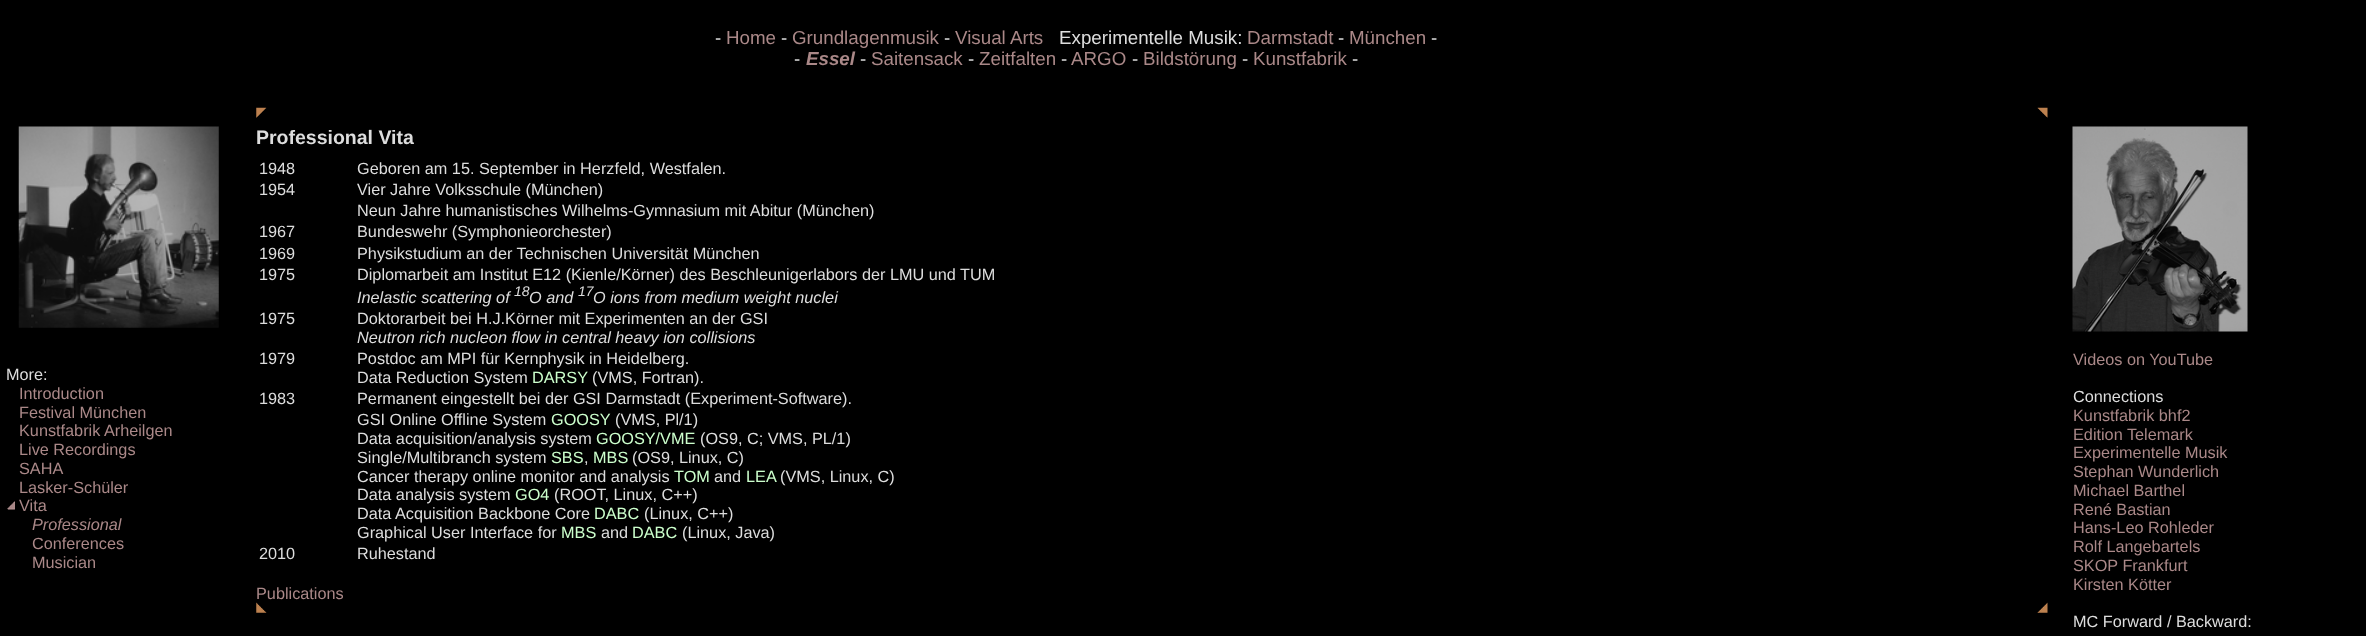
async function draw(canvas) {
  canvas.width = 2366;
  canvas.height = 636;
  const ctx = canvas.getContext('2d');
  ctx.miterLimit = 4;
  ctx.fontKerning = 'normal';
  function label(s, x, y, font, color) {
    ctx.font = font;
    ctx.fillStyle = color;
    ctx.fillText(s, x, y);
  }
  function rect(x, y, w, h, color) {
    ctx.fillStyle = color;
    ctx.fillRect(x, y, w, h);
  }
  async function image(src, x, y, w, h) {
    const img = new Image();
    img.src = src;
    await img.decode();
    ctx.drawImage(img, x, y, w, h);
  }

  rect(0, 0, 2366, 636, '#000');
  label('-', 715, 44, '18.75px Liberation Sans', '#ddd');
  label('Home', 726, 44, '18.75px Liberation Sans', '#a88');
  label('-', 781, 44, '18.75px Liberation Sans', '#ddd');
  label('Grundlagenmusik', 792, 44, '18.75px Liberation Sans', '#a88');
  label('-', 944, 44, '18.75px Liberation Sans', '#ddd');
  label('Visual Arts', 955, 44, '18.75px Liberation Sans', '#a88');
  label('Experimentelle Musik:', 1059, 44, '18.75px Liberation Sans', '#ddd');
  label('Darmstadt', 1247, 44, '18.75px Liberation Sans', '#a88');
  label('-', 1338, 44, '18.75px Liberation Sans', '#ddd');
  label('München', 1349, 44, '18.75px Liberation Sans', '#a88');
  label('-', 1431, 44, '18.75px Liberation Sans', '#ddd');
  label('-', 794, 65, '18.75px Liberation Sans', '#ddd');
  label('Essel', 806, 65, 'italic bold 18.75px Liberation Sans', '#a88');
  label('-', 860, 65, '18.75px Liberation Sans', '#ddd');
  label('Saitensack', 871, 65, '18.75px Liberation Sans', '#a88');
  label('-', 968, 65, '18.75px Liberation Sans', '#ddd');
  label('Zeitfalten', 979, 65, '18.75px Liberation Sans', '#a88');
  label('-', 1061, 65, '18.75px Liberation Sans', '#ddd');
  label('ARGO', 1071, 65, '18.75px Liberation Sans', '#a88');
  label('-', 1132, 65, '18.75px Liberation Sans', '#ddd');
  label('Bildstörung', 1143, 65, '18.75px Liberation Sans', '#a88');
  label('-', 1242, 65, '18.75px Liberation Sans', '#ddd');
  label('Kunstfabrik', 1253, 65, '18.75px Liberation Sans', '#a88');
  label('-', 1352, 65, '18.75px Liberation Sans', '#ddd');
  await image('assets/img1.png', 18, 126, 201, 202);
  label('More:', 6, 380, '16.25px Liberation Sans', '#ddd');
  label('Introduction', 19, 399, '16.25px Liberation Sans', '#a88');
  label('Festival München', 19, 418, '16.25px Liberation Sans', '#a88');
  label('Kunstfabrik Arheilgen', 19, 436, '16.25px Liberation Sans', '#a88');
  label('Live Recordings', 19, 455, '16.25px Liberation Sans', '#a88');
  label('SAHA', 19, 474, '16.25px Liberation Sans', '#a88');
  label('Lasker-Schüler', 19, 493, '16.25px Liberation Sans', '#a88');
  await image('assets/img2.png', 7, 501, 8, 9);
  label('Vita', 19, 511, '16.25px Liberation Sans', '#a88');
  label('Professional', 32, 530, 'italic 16.25px Liberation Sans', '#a88');
  label('Conferences', 32, 549, '16.25px Liberation Sans', '#a88');
  label('Musician', 32, 568, '16.25px Liberation Sans', '#a88');
  await image('assets/img3.png', 256, 107, 11, 11);
  await image('assets/img4.png', 2037, 107, 11, 11);
  label('Professional Vita', 256, 144, 'bold 19.5px Liberation Sans', '#ddd');
  label('1948', 259, 174, '16.25px Liberation Sans', '#ddd');
  label('Geboren am 15. September in Herzfeld, Westfalen.', 357, 174, '16.25px Liberation Sans', '#ddd');
  label('1954', 259, 195, '16.25px Liberation Sans', '#ddd');
  label('Vier Jahre Volksschule (München)', 357, 195, '16.25px Liberation Sans', '#ddd');
  label('Neun Jahre humanistisches Wilhelms-Gymnasium mit Abitur (München)', 357, 216, '16.25px Liberation Sans', '#ddd');
  label('1967', 259, 237, '16.25px Liberation Sans', '#ddd');
  label('Bundeswehr (Symphonieorchester)', 357, 237, '16.25px Liberation Sans', '#ddd');
  label('1969', 259, 259, '16.25px Liberation Sans', '#ddd');
  label('Physikstudium an der Technischen Universität München', 357, 259, '16.25px Liberation Sans', '#ddd');
  label('1975', 259, 280, '16.25px Liberation Sans', '#ddd');
  label('Diplomarbeit am Institut E12 (Kienle/Körner) des Beschleunigerlabors der LMU und TUM', 357, 280, '16.25px Liberation Sans', '#ddd');
  label('Inelastic scattering of', 357, 303, 'italic 16.25px Liberation Sans', '#ddd');
  label('18', 514, 296, 'italic 14px Liberation Sans', '#ddd');
  label('O and', 529, 303, 'italic 16.25px Liberation Sans', '#ddd');
  label('17', 578, 296, 'italic 14px Liberation Sans', '#ddd');
  label('O ions from medium weight nuclei', 593, 303, 'italic 16.25px Liberation Sans', '#ddd');
  label('1975', 259, 324, '16.25px Liberation Sans', '#ddd');
  label('Doktorarbeit bei H.J.Körner mit Experimenten an der GSI', 357, 324, '16.25px Liberation Sans', '#ddd');
  label('Neutron rich nucleon flow in central heavy ion collisions', 357, 343, 'italic 16.25px Liberation Sans', '#ddd');
  label('1979', 259, 364, '16.25px Liberation Sans', '#ddd');
  label('Postdoc am MPI für Kernphysik in Heidelberg.', 357, 364, '16.25px Liberation Sans', '#ddd');
  label('Data Reduction System', 357, 383, '16.25px Liberation Sans', '#ddd');
  label('DARSY', 532, 383, '16.25px Liberation Sans', '#cfc');
  label('(VMS, Fortran).', 592, 383, '16.25px Liberation Sans', '#ddd');
  label('1983', 259, 404, '16.25px Liberation Sans', '#ddd');
  label('Permanent eingestellt bei der GSI Darmstadt (Experiment-Software).', 357, 404, '16.25px Liberation Sans', '#ddd');
  label('GSI Online Offline System', 357, 425, '16.25px Liberation Sans', '#ddd');
  label('GOOSY', 551, 425, '16.25px Liberation Sans', '#cfc');
  label('(VMS, Pl/1)', 615, 425, '16.25px Liberation Sans', '#ddd');
  label('Data acquisition/analysis system', 357, 444, '16.25px Liberation Sans', '#ddd');
  label('GOOSY/VME', 596, 444, '16.25px Liberation Sans', '#cfc');
  label('(OS9, C; VMS, PL/1)', 700, 444, '16.25px Liberation Sans', '#ddd');
  label('Single/Multibranch system', 357, 463, '16.25px Liberation Sans', '#ddd');
  label('SBS', 551, 463, '16.25px Liberation Sans', '#cfc');
  label(',', 584, 463, '16.25px Liberation Sans', '#ddd');
  label('MBS', 593, 463, '16.25px Liberation Sans', '#cfc');
  label('(OS9, Linux, C)', 632, 463, '16.25px Liberation Sans', '#ddd');
  label('Cancer therapy online monitor and analysis', 357, 482, '16.25px Liberation Sans', '#ddd');
  label('TOM', 674, 482, '16.25px Liberation Sans', '#cfc');
  label('and', 714, 482, '16.25px Liberation Sans', '#ddd');
  label('LEA', 746, 482, '16.25px Liberation Sans', '#cfc');
  label('(VMS, Linux, C)', 780, 482, '16.25px Liberation Sans', '#ddd');
  label('Data analysis system', 357, 500, '16.25px Liberation Sans', '#ddd');
  label('GO4', 515, 500, '16.25px Liberation Sans', '#cfc');
  label('(ROOT, Linux, C++)', 554, 500, '16.25px Liberation Sans', '#ddd');
  label('Data Acquisition Backbone Core', 357, 519, '16.25px Liberation Sans', '#ddd');
  label('DABC', 594, 519, '16.25px Liberation Sans', '#cfc');
  label('(Linux, C++)', 644, 519, '16.25px Liberation Sans', '#ddd');
  label('Graphical User Interface for', 357, 538, '16.25px Liberation Sans', '#ddd');
  label('MBS', 561, 538, '16.25px Liberation Sans', '#cfc');
  label('and', 601, 538, '16.25px Liberation Sans', '#ddd');
  label('DABC', 632, 538, '16.25px Liberation Sans', '#cfc');
  label('(Linux, Java)', 682, 538, '16.25px Liberation Sans', '#ddd');
  label('2010', 259, 559, '16.25px Liberation Sans', '#ddd');
  label('Ruhestand', 357, 559, '16.25px Liberation Sans', '#ddd');
  label('Publications', 256, 599, '16.25px Liberation Sans', '#a88');
  await image('assets/img5.png', 256, 602, 11, 11);
  await image('assets/img6.png', 2037, 602, 11, 11);
  await image('assets/img7.png', 2072, 126, 176, 206);
  label('Videos on YouTube', 2073, 365, '16.25px Liberation Sans', '#a88');
  label('Connections', 2073, 402, '16.25px Liberation Sans', '#ddd');
  label('Kunstfabrik bhf2', 2073, 421, '16.25px Liberation Sans', '#a88');
  label('Edition Telemark', 2073, 440, '16.25px Liberation Sans', '#a88');
  label('Experimentelle Musik', 2073, 458, '16.25px Liberation Sans', '#a88');
  label('Stephan Wunderlich', 2073, 477, '16.25px Liberation Sans', '#a88');
  label('Michael Barthel', 2073, 496, '16.25px Liberation Sans', '#a88');
  label('René Bastian', 2073, 515, '16.25px Liberation Sans', '#a88');
  label('Hans-Leo Rohleder', 2073, 533, '16.25px Liberation Sans', '#a88');
  label('Rolf Langebartels', 2073, 552, '16.25px Liberation Sans', '#a88');
  label('SKOP Frankfurt', 2073, 571, '16.25px Liberation Sans', '#a88');
  label('Kirsten Kötter', 2073, 590, '16.25px Liberation Sans', '#a88');
  label('MC Forward / Backward:', 2073, 627, '16.25px Liberation Sans', '#ddd');
}

draw(document.querySelector('canvas'));
